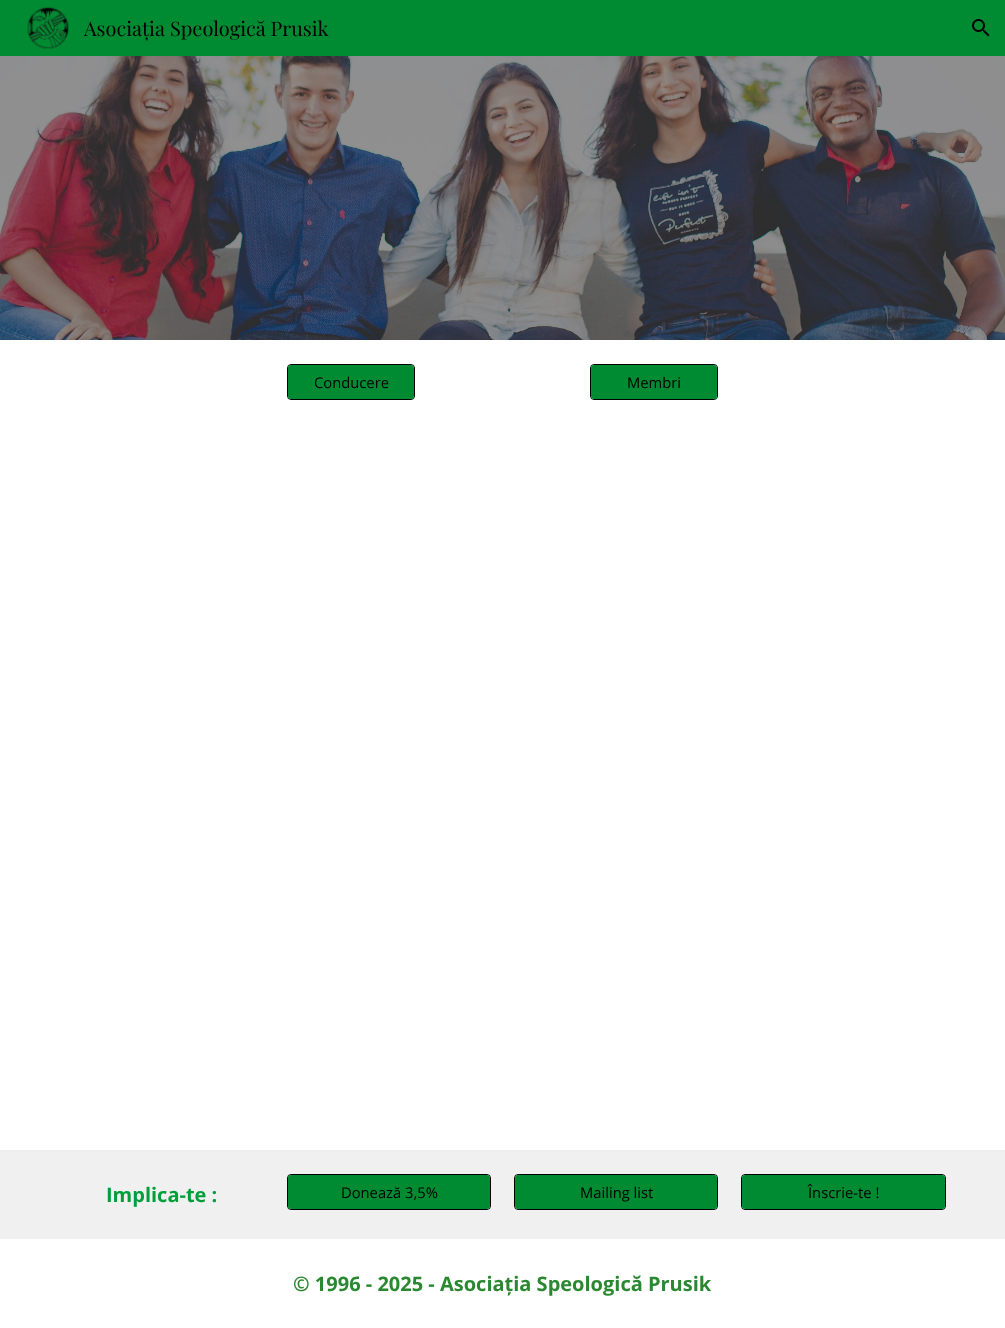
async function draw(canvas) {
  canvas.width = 1005;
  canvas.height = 1328;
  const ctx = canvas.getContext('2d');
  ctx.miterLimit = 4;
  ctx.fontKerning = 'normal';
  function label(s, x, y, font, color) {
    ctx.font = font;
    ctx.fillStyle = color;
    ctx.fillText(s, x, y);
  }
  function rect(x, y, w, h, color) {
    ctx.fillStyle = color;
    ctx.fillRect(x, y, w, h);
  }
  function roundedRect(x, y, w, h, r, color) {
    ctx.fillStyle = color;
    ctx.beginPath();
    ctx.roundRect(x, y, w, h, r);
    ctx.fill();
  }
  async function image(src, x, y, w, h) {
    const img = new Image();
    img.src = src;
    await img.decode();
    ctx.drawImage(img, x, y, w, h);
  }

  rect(0, 0, 1005, 1328, '#fff');
  rect(0, 0, 1005, 56, '#008a32');
  await image('assets/img1.png', 27, 7, 42, 42);
  label('Asociația Speologică Prusik', 84, 36, '20px Playfair Display', '#000');
  await image('assets/img2.png', 972, 19, 18, 18);
  await image('assets/img3.png', 0, 56, 1005, 284);
  ctx.beginPath();
  ctx.roundRect(287.5, 364.5, 127, 35, 3.5);
  ctx.strokeStyle = '#000';
  ctx.stroke();
  roundedRect(288, 365, 126, 34, 3, '#008a32');
  label('Conducere', 314, 388, '14.75px Open Sans', '#000');
  ctx.beginPath();
  ctx.roundRect(590.5, 364.5, 127, 35, 3.5);
  ctx.stroke();
  roundedRect(591, 365, 126, 34, 3, '#008a32');
  label('Membri', 627, 388, '14.75px Open Sans', '#000');
  rect(0, 1150, 1005, 89, '#f0f0f0');
  label('Implica-te :', 106, 1202, 'bold 20px Open Sans', '#009f3c');
  ctx.beginPath();
  ctx.roundRect(287.5, 1174.5, 203, 35, 3.5);
  ctx.stroke();
  roundedRect(288, 1175, 202, 34, 3, '#008a32');
  label('Donează 3,5%', 341, 1198, '14.75px Open Sans', '#000');
  ctx.beginPath();
  ctx.roundRect(514.5, 1174.5, 203, 35, 3.5);
  ctx.stroke();
  roundedRect(515, 1175, 202, 34, 3, '#008a32');
  label('Mailing list', 580, 1198, '14.75px Open Sans', '#000');
  ctx.beginPath();
  ctx.roundRect(741.5, 1174.5, 204, 35, 3.5);
  ctx.stroke();
  roundedRect(742, 1175, 203, 34, 3, '#008a32');
  label('Înscrie-te !', 808, 1198, '14.75px Open Sans', '#000');
  label('© 1996 - 2025 - Asociația Speologică Prusik', 293, 1291, 'bold 20px Open Sans', '#2a8930');
}

draw(document.querySelector('canvas'));
